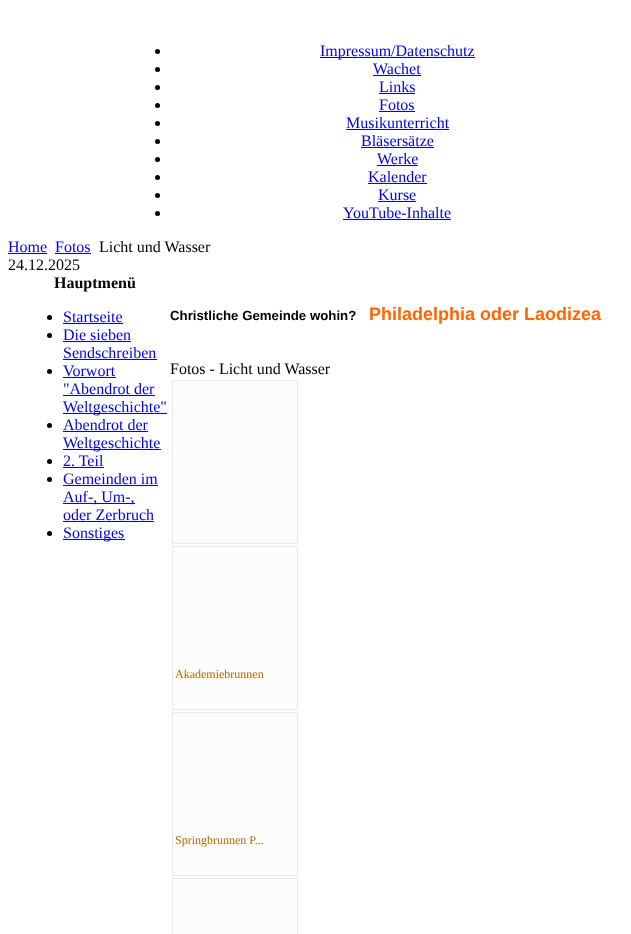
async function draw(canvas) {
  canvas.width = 631;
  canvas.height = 934;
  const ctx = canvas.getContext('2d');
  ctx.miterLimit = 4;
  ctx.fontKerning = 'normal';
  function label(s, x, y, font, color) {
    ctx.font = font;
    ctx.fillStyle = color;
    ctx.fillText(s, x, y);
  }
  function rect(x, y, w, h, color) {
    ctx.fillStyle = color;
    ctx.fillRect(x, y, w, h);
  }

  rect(0, 0, 631, 934, '#fff');
  ctx.fillStyle = '#000';
  ctx.beginPath();
  ctx.arc(157.5, 51.5, 2.5, 0, 2 * Math.PI);
  ctx.fill();
  rect(320, 57, 155, 1, '#00e');
  label('Impressum/Datenschutz', 320, 56, '16px Liberation Serif', '#00e');
  ctx.fillStyle = '#000';
  ctx.beginPath();
  ctx.arc(157.5, 69.5, 2.5, 0, 2 * Math.PI);
  ctx.fill();
  label('Wachet', 373, 74, '16px Liberation Serif', '#00e');
  rect(373, 75, 48, 1, '#00e');
  ctx.fillStyle = '#000';
  ctx.beginPath();
  ctx.arc(157.5, 87.5, 2.5, 0, 2 * Math.PI);
  ctx.fill();
  label('Links', 379, 92, '16px Liberation Serif', '#00e');
  rect(379, 93, 36, 1, '#00e');
  ctx.fillStyle = '#000';
  ctx.beginPath();
  ctx.arc(157.5, 105.5, 2.5, 0, 2 * Math.PI);
  ctx.fill();
  label('Fotos', 379, 110, '16px Liberation Serif', '#00e');
  rect(379, 111, 36, 1, '#00e');
  ctx.fillStyle = '#000';
  ctx.beginPath();
  ctx.arc(157.5, 123.5, 2.5, 0, 2 * Math.PI);
  ctx.fill();
  label('Musikunterricht', 346, 128, '16px Liberation Serif', '#00e');
  rect(346, 129, 103, 1, '#00e');
  ctx.fillStyle = '#000';
  ctx.beginPath();
  ctx.arc(157.5, 141.5, 2.5, 0, 2 * Math.PI);
  ctx.fill();
  label('Bläsersätze', 361, 146, '16px Liberation Serif', '#00e');
  rect(361, 147, 73, 1, '#00e');
  ctx.fillStyle = '#000';
  ctx.beginPath();
  ctx.arc(157.5, 159.5, 2.5, 0, 2 * Math.PI);
  ctx.fill();
  label('Werke', 377, 164, '16px Liberation Serif', '#00e');
  rect(377, 165, 41, 1, '#00e');
  ctx.fillStyle = '#000';
  ctx.beginPath();
  ctx.arc(157.5, 177.5, 2.5, 0, 2 * Math.PI);
  ctx.fill();
  label('Kalender', 368, 182, '16px Liberation Serif', '#00e');
  rect(368, 183, 59, 1, '#00e');
  ctx.fillStyle = '#000';
  ctx.beginPath();
  ctx.arc(157.5, 195.5, 2.5, 0, 2 * Math.PI);
  ctx.fill();
  label('Kurse', 378, 200, '16px Liberation Serif', '#00e');
  rect(378, 201, 38, 1, '#00e');
  ctx.fillStyle = '#000';
  ctx.beginPath();
  ctx.arc(157.5, 213.5, 2.5, 0, 2 * Math.PI);
  ctx.fill();
  label('YouTube-Inhalte', 343, 218, '16px Liberation Serif', '#00e');
  rect(343, 219, 108, 1, '#00e');
  label('Home', 8, 252, '16px Liberation Serif', '#00e');
  rect(8, 253, 39, 1, '#00e');
  label('Fotos', 55, 252, '16px Liberation Serif', '#00e');
  rect(55, 253, 36, 1, '#00e');
  label('Licht und Wasser', 99, 252, '16px Liberation Serif', '#000');
  label('24.12.2025', 8, 270, '16px Liberation Serif', '#000');
  label('Hauptmenü', 54, 288, 'bold 16px Liberation Serif', '#000');
  ctx.beginPath();
  ctx.arc(49.5, 317.5, 2.5, 0, 2 * Math.PI);
  ctx.fill();
  label('Startseite', 63, 322, '16px Liberation Serif', '#00e');
  rect(63, 323, 60, 1, '#00e');
  ctx.fillStyle = '#000';
  ctx.beginPath();
  ctx.arc(49.5, 335.5, 2.5, 0, 2 * Math.PI);
  ctx.fill();
  label('Die sieben', 63, 340, '16px Liberation Serif', '#00e');
  rect(63, 341, 68, 1, '#00e');
  label('Sendschreiben', 63, 358, '16px Liberation Serif', '#00e');
  rect(63, 359, 94, 1, '#00e');
  ctx.fillStyle = '#000';
  ctx.beginPath();
  ctx.arc(49.5, 371.5, 2.5, 0, 2 * Math.PI);
  ctx.fill();
  label('Vorwort', 63, 376, '16px Liberation Serif', '#00e');
  rect(63, 377, 53, 1, '#00e');
  label('"Abendrot der', 63, 394, '16px Liberation Serif', '#00e');
  rect(63, 395, 92, 1, '#00e');
  rect(63, 413, 104, 1, '#00e');
  label('Weltgeschichte"', 63, 412, '16px Liberation Serif', '#00e');
  ctx.fillStyle = '#000';
  ctx.beginPath();
  ctx.arc(49.5, 425.5, 2.5, 0, 2 * Math.PI);
  ctx.fill();
  label('Abendrot der', 63, 430, '16px Liberation Serif', '#00e');
  rect(63, 431, 85, 1, '#00e');
  rect(63, 449, 98, 1, '#00e');
  label('Weltgeschichte', 63, 448, '16px Liberation Serif', '#00e');
  ctx.fillStyle = '#000';
  ctx.beginPath();
  ctx.arc(49.5, 461.5, 2.5, 0, 2 * Math.PI);
  ctx.fill();
  label('2. Teil', 63, 466, '16px Liberation Serif', '#00e');
  rect(63, 467, 41, 1, '#00e');
  ctx.fillStyle = '#000';
  ctx.beginPath();
  ctx.arc(49.5, 479.5, 2.5, 0, 2 * Math.PI);
  ctx.fill();
  label('Gemeinden im', 63, 484, '16px Liberation Serif', '#00e');
  rect(63, 485, 95, 1, '#00e');
  rect(63, 503, 72, 1, '#00e');
  label('Auf-, Um-,', 63, 502, '16px Liberation Serif', '#00e');
  label('oder Zerbruch', 63, 520, '16px Liberation Serif', '#00e');
  rect(63, 521, 91, 1, '#00e');
  ctx.fillStyle = '#000';
  ctx.beginPath();
  ctx.arc(49.5, 533.5, 2.5, 0, 2 * Math.PI);
  ctx.fill();
  rect(63, 539, 62, 1, '#00e');
  label('Sonstiges', 63, 538, '16px Liberation Serif', '#00e');
  label('Christliche Gemeinde wohin?', 170, 320, 'bold 13.25px Liberation Sans', '#000');
  label('Philadelphia oder Laodizea', 369, 320, 'bold 18px Liberation Sans', '#f60');
  label('Fotos - Licht und Wasser', 170, 374, '16px Liberation Serif', '#000');
  ctx.fillStyle = '#fcfcfc';
  ctx.beginPath();
  ctx.rect(172.5, 380.5, 125, 163);
  ctx.fill();
  ctx.strokeStyle = '#e8e8e8';
  ctx.stroke();
  ctx.beginPath();
  ctx.rect(172.5, 546.5, 125, 163);
  ctx.fill();
  ctx.stroke();
  label('Akademiebrunnen', 175, 678, '12px Liberation Serif', '#b36b00');
  ctx.fillStyle = '#fcfcfc';
  ctx.beginPath();
  ctx.rect(172.5, 712.5, 125, 163);
  ctx.fill();
  ctx.stroke();
  label('Springbrunnen P...', 175, 844, '12px Liberation Serif', '#b36b00');
  ctx.fillStyle = '#fcfcfc';
  ctx.beginPath();
  ctx.rect(172.5, 878.5, 125, 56);
  ctx.fill();
  ctx.stroke();
}

draw(document.querySelector('canvas'));
